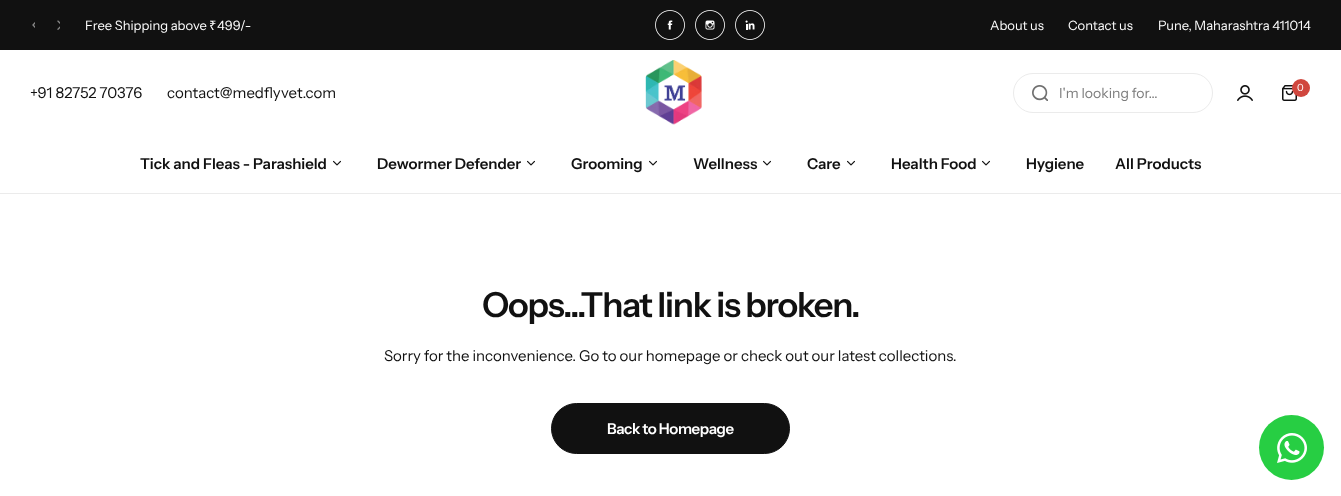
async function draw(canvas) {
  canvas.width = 1341;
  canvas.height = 496;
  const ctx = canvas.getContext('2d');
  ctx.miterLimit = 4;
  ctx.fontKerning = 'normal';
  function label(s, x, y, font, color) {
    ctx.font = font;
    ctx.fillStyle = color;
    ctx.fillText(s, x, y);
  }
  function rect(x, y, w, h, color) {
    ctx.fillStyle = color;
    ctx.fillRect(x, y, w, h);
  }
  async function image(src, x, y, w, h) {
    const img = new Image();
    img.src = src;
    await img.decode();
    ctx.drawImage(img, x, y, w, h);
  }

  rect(0, 0, 1341, 496, '#fff');
  rect(0, 0, 1341, 50, '#111');
  await image('assets/img1.png', 32, 22, 3, 6);
  await image('assets/img2.png', 57, 20, 3, 10);
  label('Free Shipping above', 85, 30, '13px Instrument Sans', '#fff');
  label('₹', 209, 30, '13px Noto Sans', '#fff');
  label('499/-', 217, 30, '13px Instrument Sans', '#fff');
  await image('assets/img3.png', 655, 10, 30, 30);
  await image('assets/img4.png', 695, 10, 30, 30);
  await image('assets/img5.png', 735, 10, 30, 30);
  label('About us', 990, 30, '13px Instrument Sans', '#fff');
  label('Contact us', 1068, 30, '13px Instrument Sans', '#fff');
  label('Pune, Maharashtra 411014', 1158, 30, '13px Instrument Sans', '#fff');
  rect(0, 193, 1341, 1, '#ebebeb');
  label('+91 82752 70376', 30, 98, '15px Instrument Sans', '#111');
  label('contact@medflyvet.com', 167, 98, '15px Instrument Sans', '#111');
  await image('assets/img6.png', 645, 60, 57, 65);
  ctx.beginPath();
  ctx.roundRect(1013.5, 73.5, 199, 39, 19.5);
  ctx.strokeStyle = '#ebebeb';
  ctx.stroke();
  await image('assets/img7.png', 1032, 85, 16, 16);
  label('I\'m looking for…', 1059, 98, '14px Instrument Sans', '#7c7c7c');
  await image('assets/img8.png', 1237, 85, 16, 16);
  await image('assets/img9.png', 1282, 85, 15, 16);
  ctx.fillStyle = '#d0473e';
  ctx.beginPath();
  ctx.arc(1301, 88, 9, 0, 2 * Math.PI);
  ctx.fill();
  label('0', 1297, 91, '10px Instrument Sans', '#fff');
  label('Tick and Fleas - Parashield', 140, 169, '600 15px Instrument Sans', '#111');
  await image('assets/img10.png', 333, 160, 8, 6);
  label('Dewormer Defender', 377, 169, '600 15px Instrument Sans', '#111');
  await image('assets/img10.png', 527, 160, 8, 6);
  label('Grooming', 571, 169, '600 15px Instrument Sans', '#111');
  await image('assets/img10.png', 649, 160, 8, 6);
  label('Wellness', 693, 169, '600 15px Instrument Sans', '#111');
  await image('assets/img10.png', 763, 160, 8, 6);
  label('Care', 807, 169, '600 15px Instrument Sans', '#111');
  await image('assets/img10.png', 847, 160, 8, 6);
  label('Health Food', 891, 169, '600 15px Instrument Sans', '#111');
  await image('assets/img10.png', 982, 160, 8, 6);
  label('Hygiene', 1026, 169, '600 15px Instrument Sans', '#111');
  label('All Products', 1115, 169, '600 15px Instrument Sans', '#111');
  ctx.letterSpacing = '-1.2px';
  label('Oops...That link is broken.', 482, 317, '600 34.5px Instrument Sans', '#111');
  ctx.letterSpacing = '0px';
  label('Sorry for the inconvenience. Go to our homepage or check out our latest collections.', 384, 361, '15px Instrument Sans', '#111');
  ctx.beginPath();
  ctx.roundRect(551.5, 403.5, 238, 50, 25);
  ctx.fill();
  ctx.strokeStyle = '#111';
  ctx.stroke();
  ctx.letterSpacing = '-0.4px';
  label('Back to Homepage', 607, 434, '600 15px Instrument Sans', '#fff');
  ctx.fillStyle = '#27ce43';
  ctx.beginPath();
  ctx.arc(1291.5, 447.5, 32.5, 0, 2 * Math.PI);
  ctx.fill();
  await image('assets/img11.png', 1277, 433, 30, 30);
}

draw(document.querySelector('canvas'));
